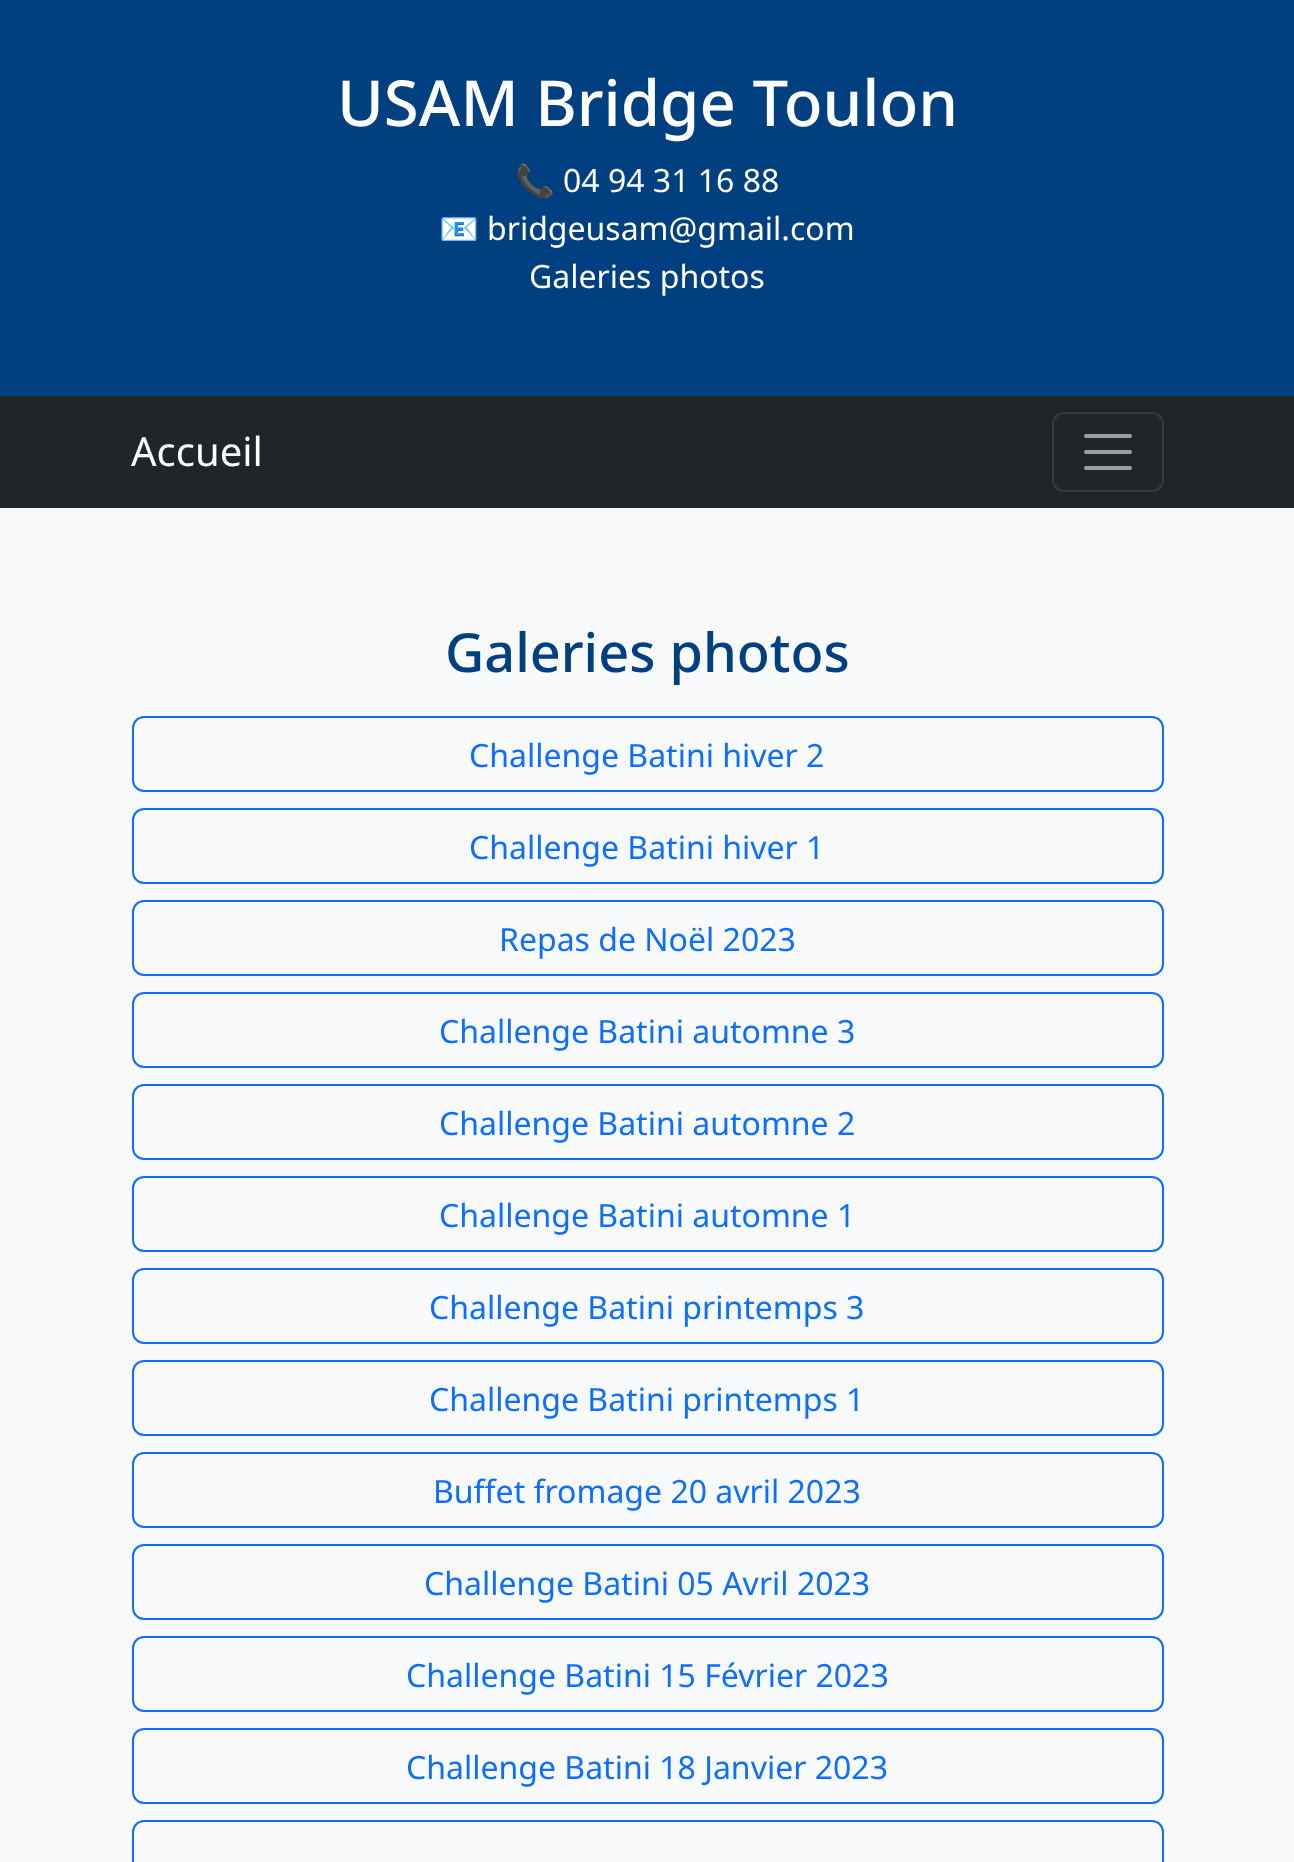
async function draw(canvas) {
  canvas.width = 1294;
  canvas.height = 1862;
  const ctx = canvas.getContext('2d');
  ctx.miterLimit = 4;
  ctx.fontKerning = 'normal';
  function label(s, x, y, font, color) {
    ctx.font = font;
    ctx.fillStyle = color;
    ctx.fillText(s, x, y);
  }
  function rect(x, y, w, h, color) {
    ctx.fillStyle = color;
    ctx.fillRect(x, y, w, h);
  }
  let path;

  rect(0, 0, 1294, 1862, '#f8f9fa');
  rect(0, 0, 1294, 396, '#004080');
  label('USAM Bridge Toulon', 337, 126, '500 63.5px Noto Sans', '#fff');
  label('📞', 515, 192, '32px Noto Color Emoji', '#fff');
  label('04 94 31 16 88', 563, 192, '32px Noto Sans', '#fff');
  label('📧', 439, 240, '32px Noto Color Emoji', '#fff');
  label('bridgeusam@gmail.com', 487, 240, '32px Noto Sans', '#fff');
  label('Galeries photos', 529, 288, '32px Noto Sans', '#fff');
  rect(0, 396, 1294, 112, '#212529');
  label('Accueil', 131, 466, '40px Noto Sans', '#fff');
  ctx.beginPath();
  ctx.roundRect(1053, 413, 110, 78, 11);
  ctx.strokeStyle = '#373b3e';
  ctx.lineWidth = 2;
  ctx.stroke();
  path = new Path2D('M1086 436H1130M1086 452H1130M1086 468H1130');
  ctx.strokeStyle = '#9b9d9f';
  ctx.lineWidth = 4;
  ctx.lineCap = 'round';
  ctx.stroke(path);
  label('Galeries photos', 445, 672, '500 54px Noto Sans', '#004080');
  ctx.beginPath();
  ctx.roundRect(133, 717, 1030, 74, 11);
  ctx.strokeStyle = '#0d6efd';
  ctx.lineWidth = 2;
  ctx.stroke();
  label('Challenge Batini hiver 2', 469, 767, '32px Noto Sans', '#0d6efd');
  ctx.beginPath();
  ctx.roundRect(133, 809, 1030, 74, 11);
  ctx.stroke();
  label('Challenge Batini hiver 1', 469, 859, '32px Noto Sans', '#0d6efd');
  ctx.beginPath();
  ctx.roundRect(133, 901, 1030, 74, 11);
  ctx.stroke();
  label('Repas de Noël 2023', 499, 951, '32px Noto Sans', '#0d6efd');
  ctx.beginPath();
  ctx.roundRect(133, 993, 1030, 74, 11);
  ctx.stroke();
  label('Challenge Batini automne 3', 439, 1043, '32px Noto Sans', '#0d6efd');
  ctx.beginPath();
  ctx.roundRect(133, 1085, 1030, 74, 11);
  ctx.stroke();
  label('Challenge Batini automne 2', 439, 1135, '32px Noto Sans', '#0d6efd');
  ctx.beginPath();
  ctx.roundRect(133, 1177, 1030, 74, 11);
  ctx.stroke();
  label('Challenge Batini automne 1', 439, 1227, '32px Noto Sans', '#0d6efd');
  ctx.beginPath();
  ctx.roundRect(133, 1269, 1030, 74, 11);
  ctx.stroke();
  label('Challenge Batini printemps 3', 429, 1319, '32px Noto Sans', '#0d6efd');
  ctx.beginPath();
  ctx.roundRect(133, 1361, 1030, 74, 11);
  ctx.stroke();
  label('Challenge Batini printemps 1', 429, 1411, '32px Noto Sans', '#0d6efd');
  ctx.beginPath();
  ctx.roundRect(133, 1453, 1030, 74, 11);
  ctx.stroke();
  label('Buffet fromage 20 avril 2023', 433, 1503, '32px Noto Sans', '#0d6efd');
  ctx.beginPath();
  ctx.roundRect(133, 1545, 1030, 74, 11);
  ctx.stroke();
  label('Challenge Batini 05 Avril 2023', 424, 1595, '32px Noto Sans', '#0d6efd');
  ctx.beginPath();
  ctx.roundRect(133, 1637, 1030, 74, 11);
  ctx.stroke();
  label('Challenge Batini 15 Février 2023', 406, 1687, '32px Noto Sans', '#0d6efd');
  ctx.beginPath();
  ctx.roundRect(133, 1729, 1030, 74, 11);
  ctx.stroke();
  label('Challenge Batini 18 Janvier 2023', 406, 1779, '32px Noto Sans', '#0d6efd');
  ctx.beginPath();
  ctx.roundRect(133, 1821, 1030, 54, 11);
  ctx.stroke();
}

draw(document.querySelector('canvas'));
